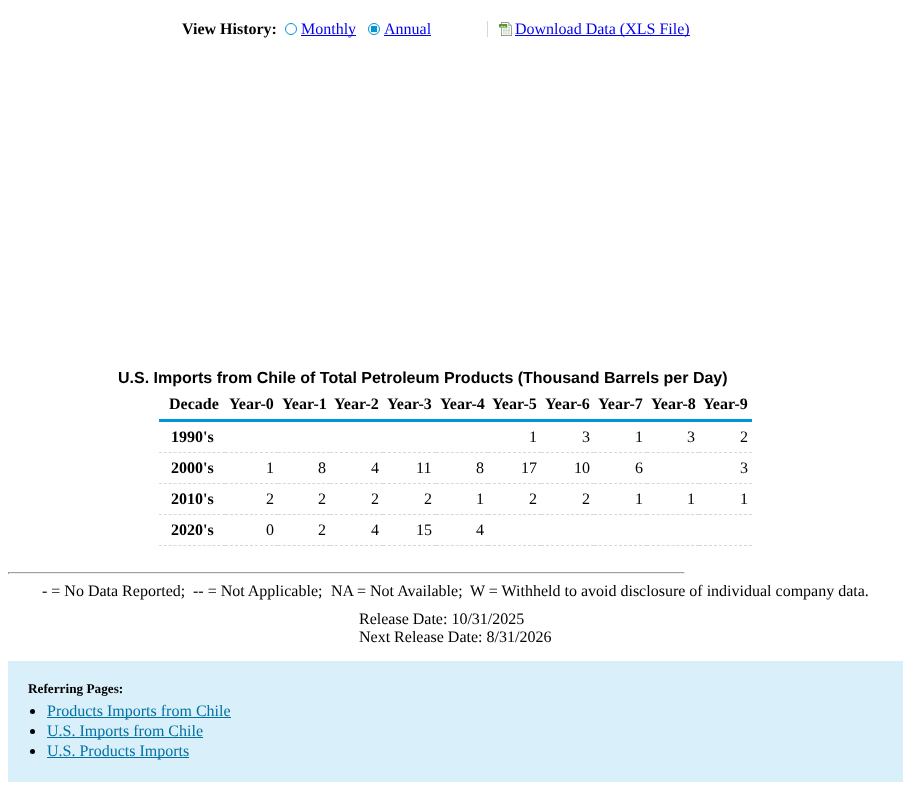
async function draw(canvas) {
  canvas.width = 911;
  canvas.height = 786;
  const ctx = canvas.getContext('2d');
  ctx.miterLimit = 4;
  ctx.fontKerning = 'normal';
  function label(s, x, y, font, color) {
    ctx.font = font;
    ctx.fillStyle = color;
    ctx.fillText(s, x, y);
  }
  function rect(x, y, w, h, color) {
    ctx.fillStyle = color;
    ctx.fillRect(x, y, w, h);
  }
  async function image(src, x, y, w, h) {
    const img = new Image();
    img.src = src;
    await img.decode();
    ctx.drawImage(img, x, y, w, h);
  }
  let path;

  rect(0, 0, 911, 786, '#fff');
  label('View History:', 182, 34, 'bold 16px Liberation Serif', '#000');
  ctx.beginPath();
  ctx.arc(291, 29, 5.5, 0, 2 * Math.PI);
  ctx.strokeStyle = '#0096d7';
  ctx.stroke();
  rect(301, 35, 55, 1, '#00e');
  label('Monthly', 301, 34, '16px Liberation Serif', '#00e');
  rect(371, 26, 6, 6, '#0096d7');
  ctx.beginPath();
  ctx.arc(374, 29, 5.5, 0, 2 * Math.PI);
  ctx.stroke();
  label('Annual', 384, 34, '16px Liberation Serif', '#00e');
  rect(384, 35, 47, 1, '#00e');
  rect(487, 21, 1, 16, '#d7d7d7');
  await image('assets/img1.png', 499, 22, 13, 14);
  rect(515, 35, 175, 1, '#00e');
  label('Download Data (XLS File)', 515, 34, '16px Liberation Serif', '#00e');
  label('U.S. Imports from Chile of Total Petroleum Products (Thousand Barrels per Day)', 118, 383, 'bold 16px Liberation Sans', '#000');
  rect(159, 419, 593, 3, '#0096d7');
  label('Decade', 169, 409, 'bold 16px Liberation Serif', '#000');
  label('Year-0', 229, 409, 'bold 16px Liberation Serif', '#000');
  label('Year-1', 282, 409, 'bold 16px Liberation Serif', '#000');
  label('Year-2', 334, 409, 'bold 16px Liberation Serif', '#000');
  label('Year-3', 387, 409, 'bold 16px Liberation Serif', '#000');
  label('Year-4', 440, 409, 'bold 16px Liberation Serif', '#000');
  label('Year-5', 492, 409, 'bold 16px Liberation Serif', '#000');
  label('Year-6', 545, 409, 'bold 16px Liberation Serif', '#000');
  label('Year-7', 598, 409, 'bold 16px Liberation Serif', '#000');
  label('Year-8', 651, 409, 'bold 16px Liberation Serif', '#000');
  label('Year-9', 703, 409, 'bold 16px Liberation Serif', '#000');
  path = new Path2D('M159 452.5H225');
  ctx.strokeStyle = '#d8d8d8';
  ctx.setLineDash([3, 1.85]);
  ctx.stroke(path);
  label('1990\'s', 171, 442, 'bold 16px Liberation Serif', '#000');
  path = new Path2D('M488 452.5H541');
  ctx.setLineDash([3, 2]);
  ctx.stroke(path);
  label('1', 529, 442, '16px Liberation Serif', '#000');
  path = new Path2D('M541 452.5H594');
  ctx.stroke(path);
  label('3', 582, 442, '16px Liberation Serif', '#000');
  path = new Path2D('M594 452.5H647');
  ctx.stroke(path);
  label('1', 635, 442, '16px Liberation Serif', '#000');
  path = new Path2D('M647 452.5H699');
  ctx.setLineDash([3, 1.9]);
  ctx.stroke(path);
  label('3', 687, 442, '16px Liberation Serif', '#000');
  path = new Path2D('M699 452.5H752');
  ctx.setLineDash([3, 2]);
  ctx.stroke(path);
  label('2', 740, 442, '16px Liberation Serif', '#000');
  path = new Path2D('M225 452.5H278');
  ctx.stroke(path);
  path = new Path2D('M278 452.5H330');
  ctx.setLineDash([3, 1.9]);
  ctx.stroke(path);
  path = new Path2D('M330 452.5H383');
  ctx.setLineDash([3, 2]);
  ctx.stroke(path);
  path = new Path2D('M383 452.5H436');
  ctx.stroke(path);
  path = new Path2D('M436 452.5H488');
  ctx.setLineDash([3, 1.9]);
  ctx.stroke(path);
  path = new Path2D('M159 483.5H225');
  ctx.setLineDash([3, 1.85]);
  ctx.stroke(path);
  label('2000\'s', 171, 473, 'bold 16px Liberation Serif', '#000');
  path = new Path2D('M225 483.5H278');
  ctx.setLineDash([3, 2]);
  ctx.stroke(path);
  label('1', 266, 473, '16px Liberation Serif', '#000');
  path = new Path2D('M278 483.5H330');
  ctx.setLineDash([3, 1.9]);
  ctx.stroke(path);
  label('8', 318, 473, '16px Liberation Serif', '#000');
  path = new Path2D('M330 483.5H383');
  ctx.setLineDash([3, 2]);
  ctx.stroke(path);
  label('4', 371, 473, '16px Liberation Serif', '#000');
  path = new Path2D('M383 483.5H436');
  ctx.stroke(path);
  label('11', 416, 473, '16px Liberation Serif', '#000');
  path = new Path2D('M436 483.5H488');
  ctx.setLineDash([3, 1.9]);
  ctx.stroke(path);
  label('8', 476, 473, '16px Liberation Serif', '#000');
  path = new Path2D('M488 483.5H541');
  ctx.setLineDash([3, 2]);
  ctx.stroke(path);
  label('17', 521, 473, '16px Liberation Serif', '#000');
  path = new Path2D('M541 483.5H594');
  ctx.stroke(path);
  label('10', 574, 473, '16px Liberation Serif', '#000');
  path = new Path2D('M594 483.5H647');
  ctx.stroke(path);
  label('6', 635, 473, '16px Liberation Serif', '#000');
  path = new Path2D('M699 483.5H752');
  ctx.stroke(path);
  label('3', 740, 473, '16px Liberation Serif', '#000');
  path = new Path2D('M647 483.5H699');
  ctx.setLineDash([3, 1.9]);
  ctx.stroke(path);
  path = new Path2D('M159 514.5H225');
  ctx.setLineDash([3, 1.85]);
  ctx.stroke(path);
  label('2010\'s', 171, 504, 'bold 16px Liberation Serif', '#000');
  path = new Path2D('M225 514.5H278');
  ctx.setLineDash([3, 2]);
  ctx.stroke(path);
  label('2', 266, 504, '16px Liberation Serif', '#000');
  path = new Path2D('M278 514.5H330');
  ctx.setLineDash([3, 1.9]);
  ctx.stroke(path);
  label('2', 318, 504, '16px Liberation Serif', '#000');
  path = new Path2D('M330 514.5H383');
  ctx.setLineDash([3, 2]);
  ctx.stroke(path);
  label('2', 371, 504, '16px Liberation Serif', '#000');
  path = new Path2D('M383 514.5H436');
  ctx.stroke(path);
  label('2', 424, 504, '16px Liberation Serif', '#000');
  path = new Path2D('M436 514.5H488');
  ctx.setLineDash([3, 1.9]);
  ctx.stroke(path);
  label('1', 476, 504, '16px Liberation Serif', '#000');
  path = new Path2D('M488 514.5H541');
  ctx.setLineDash([3, 2]);
  ctx.stroke(path);
  label('2', 529, 504, '16px Liberation Serif', '#000');
  path = new Path2D('M541 514.5H594');
  ctx.stroke(path);
  label('2', 582, 504, '16px Liberation Serif', '#000');
  path = new Path2D('M594 514.5H647');
  ctx.stroke(path);
  label('1', 635, 504, '16px Liberation Serif', '#000');
  path = new Path2D('M647 514.5H699');
  ctx.setLineDash([3, 1.9]);
  ctx.stroke(path);
  label('1', 687, 504, '16px Liberation Serif', '#000');
  path = new Path2D('M699 514.5H752');
  ctx.setLineDash([3, 2]);
  ctx.stroke(path);
  label('1', 740, 504, '16px Liberation Serif', '#000');
  path = new Path2D('M159 545.5H225');
  ctx.setLineDash([3, 1.85]);
  ctx.stroke(path);
  label('2020\'s', 171, 535, 'bold 16px Liberation Serif', '#000');
  path = new Path2D('M225 545.5H278');
  ctx.setLineDash([3, 2]);
  ctx.stroke(path);
  label('0', 266, 535, '16px Liberation Serif', '#000');
  path = new Path2D('M278 545.5H330');
  ctx.setLineDash([3, 1.9]);
  ctx.stroke(path);
  label('2', 318, 535, '16px Liberation Serif', '#000');
  path = new Path2D('M330 545.5H383');
  ctx.setLineDash([3, 2]);
  ctx.stroke(path);
  label('4', 371, 535, '16px Liberation Serif', '#000');
  path = new Path2D('M383 545.5H436');
  ctx.stroke(path);
  label('15', 416, 535, '16px Liberation Serif', '#000');
  path = new Path2D('M436 545.5H488');
  ctx.setLineDash([3, 1.9]);
  ctx.stroke(path);
  label('4', 476, 535, '16px Liberation Serif', '#000');
  path = new Path2D('M488 545.5H541');
  ctx.setLineDash([3, 2]);
  ctx.stroke(path);
  path = new Path2D('M541 545.5H594');
  ctx.stroke(path);
  path = new Path2D('M594 545.5H647');
  ctx.stroke(path);
  path = new Path2D('M647 545.5H699');
  ctx.setLineDash([3, 1.9]);
  ctx.stroke(path);
  path = new Path2D('M699 545.5H752');
  ctx.setLineDash([3, 2]);
  ctx.stroke(path);
  rect(8, 572, 677, 1, '#9f9f9f');
  rect(684, 572, 1, 2, '#eee');
  rect(8, 573, 677, 1, '#eee');
  rect(8, 572, 1, 2, '#9f9f9f');
  label('- = No Data Reported;', 42, 596, '16px Liberation Serif', '#000');
  label('-- = Not Applicable;', 193, 596, '16px Liberation Serif', '#000');
  label('NA', 331, 596, '16px Liberation Serif', '#000');
  label('= Not Available;', 357, 596, '16px Liberation Serif', '#000');
  label('W = Withheld to avoid disclosure of individual company data.', 470, 596, '16px Liberation Serif', '#000');
  label('Release Date: 10/31/2025', 359, 624, '16px Liberation Serif', '#000');
  label('Next Release Date: 8/31/2026', 359, 642, '16px Liberation Serif', '#000');
  rect(8, 661, 895, 121, '#d9eff9');
  label('Referring Pages:', 28, 693, 'bold 13.25px Liberation Serif', '#000');
  ctx.beginPath();
  ctx.arc(32.5, 711.5, 2.5, 0, 2 * Math.PI);
  ctx.fill();
  rect(47, 717, 184, 1, '#0071a1');
  label('Products Imports from Chile', 47, 716, '16px Liberation Serif', '#0071a1');
  ctx.fillStyle = '#000';
  ctx.beginPath();
  ctx.arc(32.5, 731.5, 2.5, 0, 2 * Math.PI);
  ctx.fill();
  rect(47, 737, 156, 1, '#0071a1');
  label('U.S. Imports from Chile', 47, 736, '16px Liberation Serif', '#0071a1');
  ctx.fillStyle = '#000';
  ctx.beginPath();
  ctx.arc(32.5, 751.5, 2.5, 0, 2 * Math.PI);
  ctx.fill();
  rect(47, 757, 142, 1, '#0071a1');
  label('U.S. Products Imports', 47, 756, '16px Liberation Serif', '#0071a1');
}

draw(document.querySelector('canvas'));
